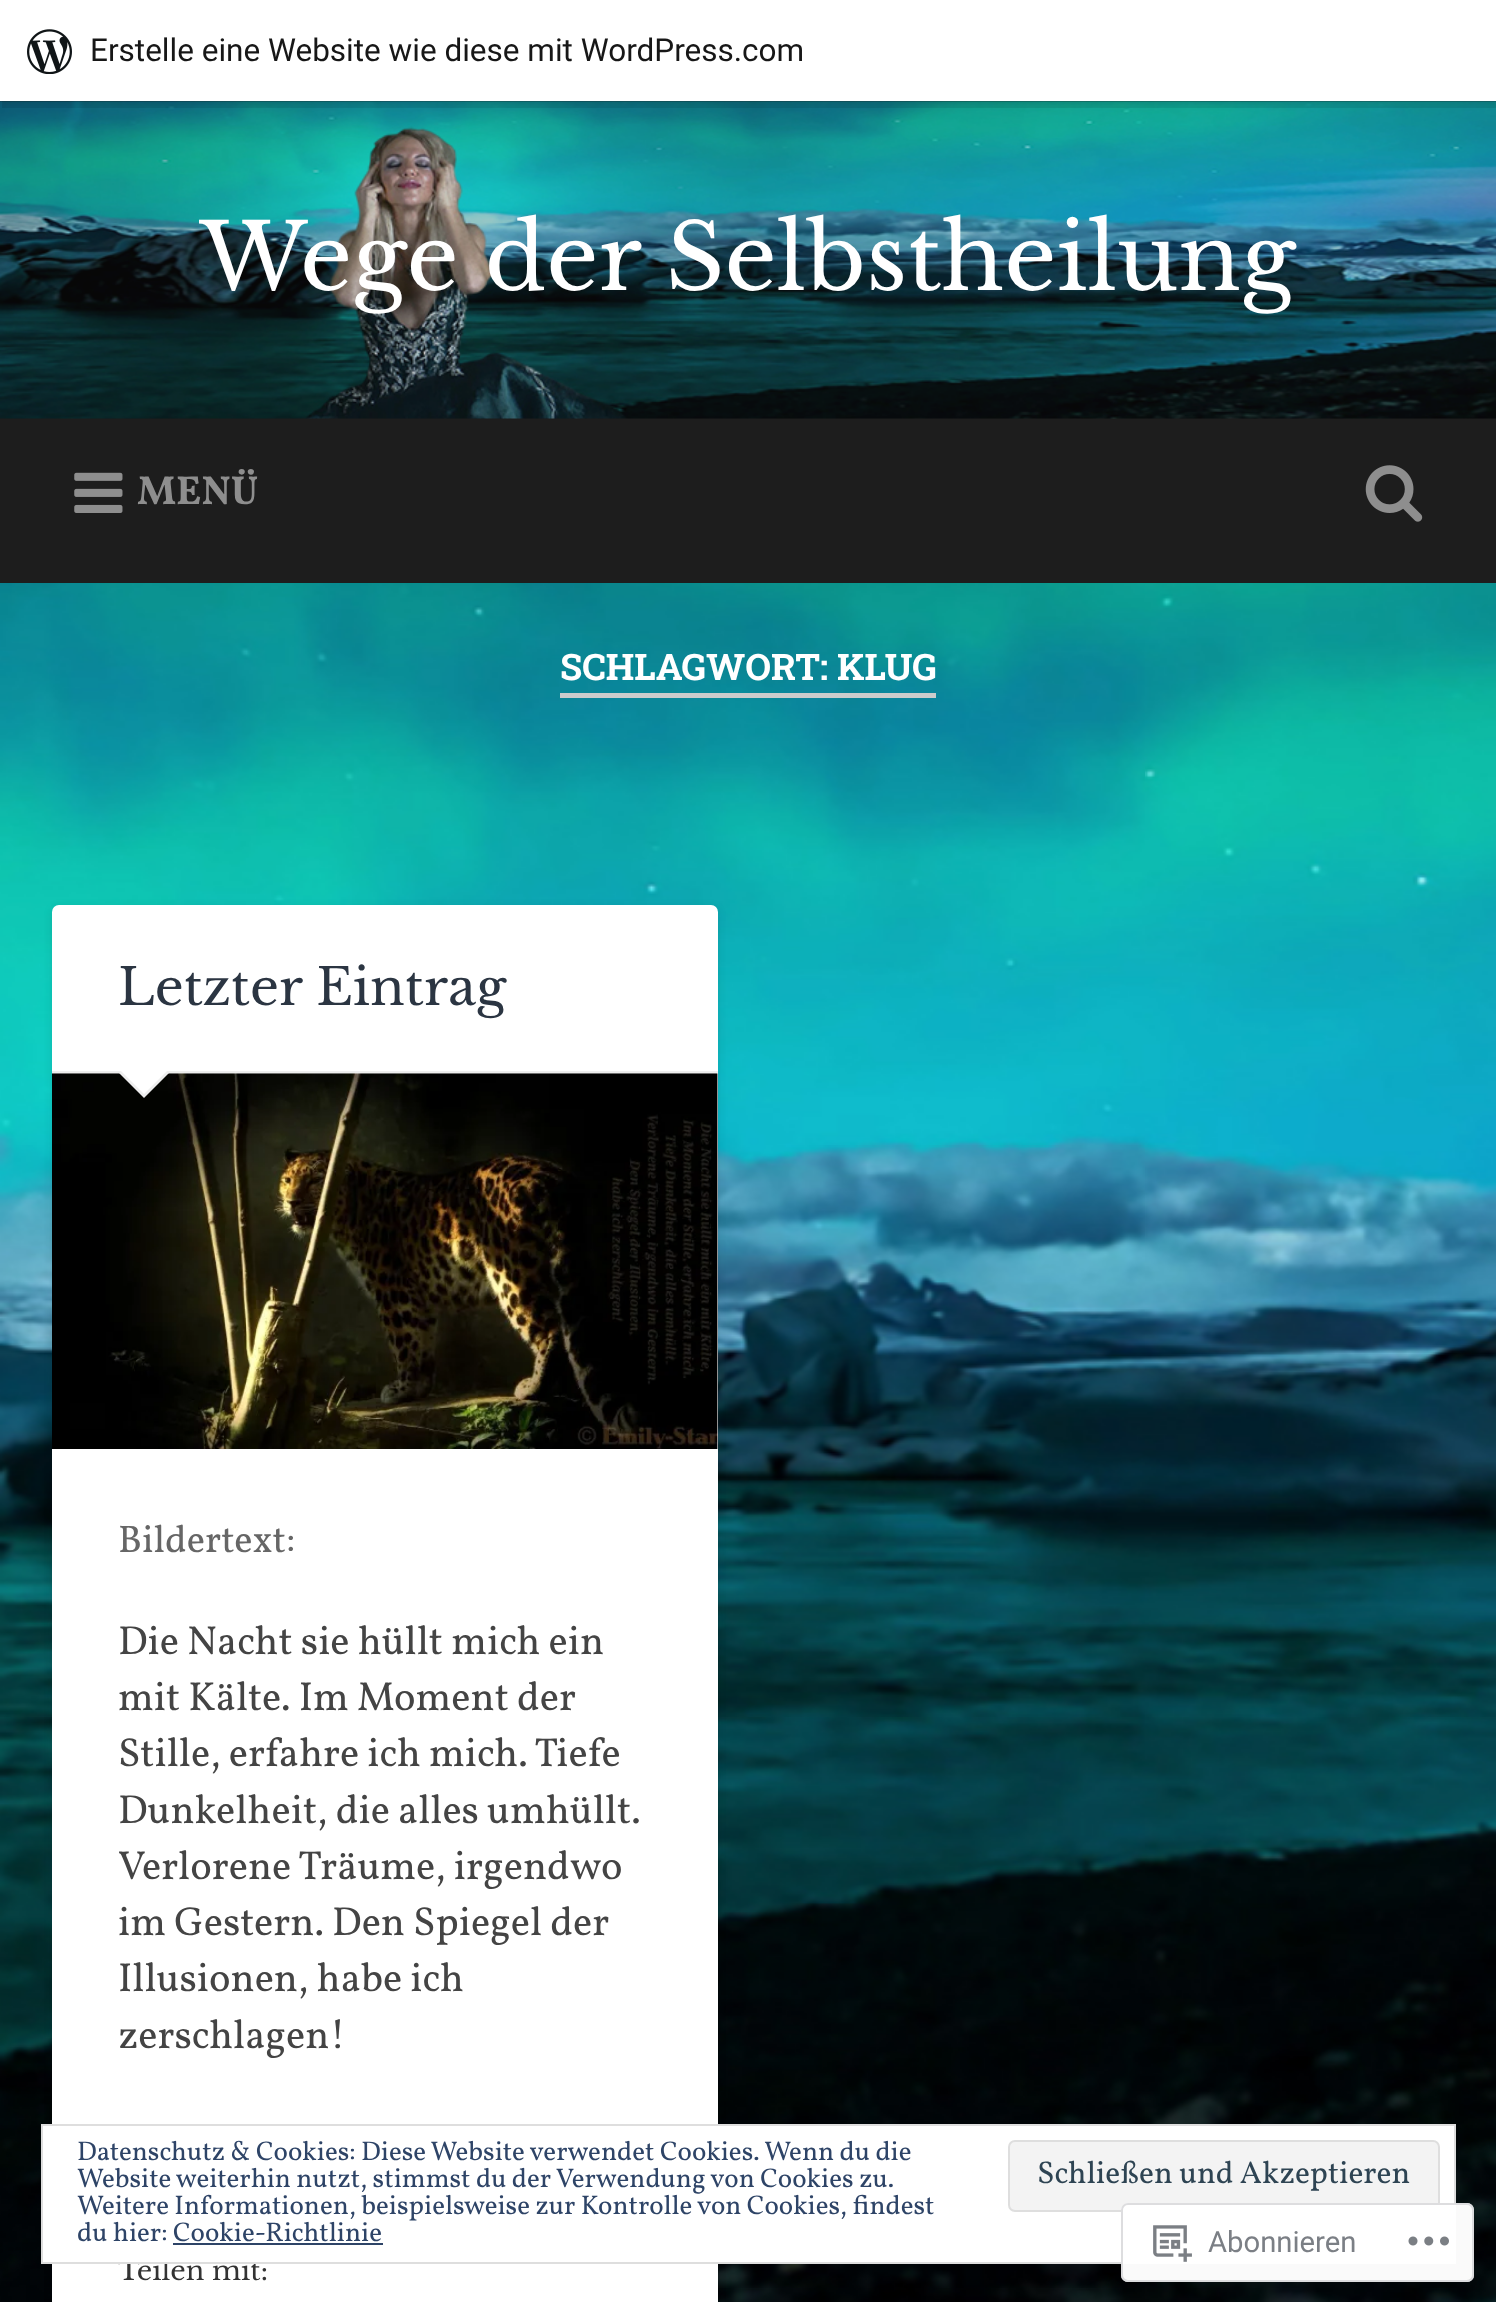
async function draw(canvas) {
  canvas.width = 1496;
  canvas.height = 2302;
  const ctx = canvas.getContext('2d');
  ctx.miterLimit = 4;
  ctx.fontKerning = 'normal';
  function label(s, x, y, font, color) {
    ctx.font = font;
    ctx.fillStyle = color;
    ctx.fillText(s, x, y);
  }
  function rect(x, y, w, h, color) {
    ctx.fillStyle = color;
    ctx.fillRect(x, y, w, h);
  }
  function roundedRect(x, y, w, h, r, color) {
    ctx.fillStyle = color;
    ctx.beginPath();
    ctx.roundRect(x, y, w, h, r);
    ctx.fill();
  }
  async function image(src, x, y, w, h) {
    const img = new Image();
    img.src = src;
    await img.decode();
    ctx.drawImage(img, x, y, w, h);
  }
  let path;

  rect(0, 0, 1496, 2302, '#fff');
  await image('assets/img1.png', 0, 583, 1496, 1719);
  rect(0, 101, 1496, 482, '#1d1d1d');
  await image('assets/img3.png', 0, 101, 1496, 318);
  rect(0, 101, 1496, 318, '#1d1d1d40');
  ctx.fillStyle = '#0000000d';
  ctx.filter = 'blur(2px)';
  ctx.beginPath();
  ctx.rect(0, 2, 1496, 102);
  ctx.fill();
  ctx.filter = 'none';
  ctx.fillStyle = '#00000014';
  path = new Path2D('M2 101V108H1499V7H1496V101Z');
  ctx.fill(path);
  rect(0, 0, 1496, 101, '#fff');
  await image('assets/img2.png', 27, 29, 45, 45);
  label('Erstelle eine Website wie diese mit WordPress.com', 90, 61, '31.5px Roboto', '#171717');
  label('Wege der Selbstheilung', 200, 290, '91.1px Libre Baskerville', '#fff');
  await image('assets/img4.png', 74, 472, 49, 41);
  label('MENÜ', 137, 504, 'bold 40.5px Vollkorn', '#8e8e8e');
  await image('assets/img5.png', 1365, 465, 58, 57);
  rect(560, 693, 376, 5, '#ccc');
  label('SCHLAGWORT: KLUG', 560, 680, 'bold 36.5px Roboto Slab', '#fff');
  ctx.fillStyle = '#0000001a';
  ctx.filter = 'blur(4.5px)';
  ctx.beginPath();
  ctx.roundRect(52, 907, 666, 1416, 7);
  ctx.fill();
  ctx.filter = 'none';
  roundedRect(52, 905, 666, 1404, 7, '#fff');
  rect(52, 1071, 666, 2, '#eee');
  label('Letzter Eintrag', 118, 1005, '50.5px Libre Baskerville', '#2b3542');
  await image('assets/img6.png', 52, 1073, 666, 376);
  ctx.fillStyle = '#eee';
  path = new Path2D('M117 1071H171L144 1098Z');
  ctx.fill(path);
  ctx.fillStyle = '#fff';
  path = new Path2D('M119 1069H169L144 1094Z');
  ctx.fill(path);
  label('Bildertext:', 118, 1552, '38.5px Vollkorn', '#666');
  label('Die Nacht sie hüllt mich ein', 118, 1654, '40.5px Vollkorn', '#444');
  label('mit Kälte. Im Moment der', 118, 1710, '40.5px Vollkorn', '#444');
  label('Stille, erfahre ich mich. Tiefe', 118, 1766, '40.5px Vollkorn', '#444');
  label('Dunkelheit, die alles umhüllt.', 118, 1823, '40.5px Vollkorn', '#444');
  label('Verlorene Träume, irgendwo', 118, 1879, '40.5px Vollkorn', '#444');
  label('im Gestern. Den Spiegel der', 118, 1935, '40.5px Vollkorn', '#444');
  label('Illusionen, habe ich', 118, 1991, '40.5px Vollkorn', '#444');
  label('zerschlagen!', 118, 2048, '40.5px Vollkorn', '#444');
  label('Teilen mit:', 118, 2280, '27px Libre Baskerville', '#333');
  ctx.fillStyle = '#fff';
  ctx.beginPath();
  ctx.rect(42, 2125, 1413, 138);
  ctx.fill();
  ctx.strokeStyle = '#dedede';
  ctx.lineWidth = 2;
  ctx.stroke();
  label('Datenschutz & Cookies: Diese Website verwendet Cookies. Wenn du die', 77, 2160, '27px Vollkorn', '#2e4467');
  label('Website weiterhin nutzt, stimmst du der Verwendung von Cookies zu.', 77, 2187, '27px Vollkorn', '#2e4467');
  ctx.fillStyle = '#f3f3f3';
  ctx.beginPath();
  ctx.roundRect(1009, 2141, 430, 70, 6);
  ctx.fill();
  ctx.stroke();
  label('Schließen und Akzeptieren', 1037, 2183, '31.5px Vollkorn', '#2e4453');
  label('Weitere Informationen, beispielsweise zur Kontrolle von Cookies, findest', 77, 2214, '27px Vollkorn', '#2e4467');
  label('du hier: Cookie-Richtlinie', 77, 2241, '27px Vollkorn', '#2e4467');
  rect(173, 2243, 210, 2, '#2e4467');
  roundedRect(1121, 2203, 353, 79, 7, '#fffffffa');
  ctx.beginPath();
  ctx.roundRect(1122, 2204, 351, 77, 6);
  ctx.strokeStyle = '#dcdcdefa';
  ctx.stroke();
  await image('assets/img7.png', 1153, 2225, 39, 37);
  label('Abonnieren', 1208, 2252, '29.25px Roboto', '#7b7f85');
  await image('assets/img8.png', 1408, 2236, 41, 10);
}

draw(document.querySelector('canvas'));
